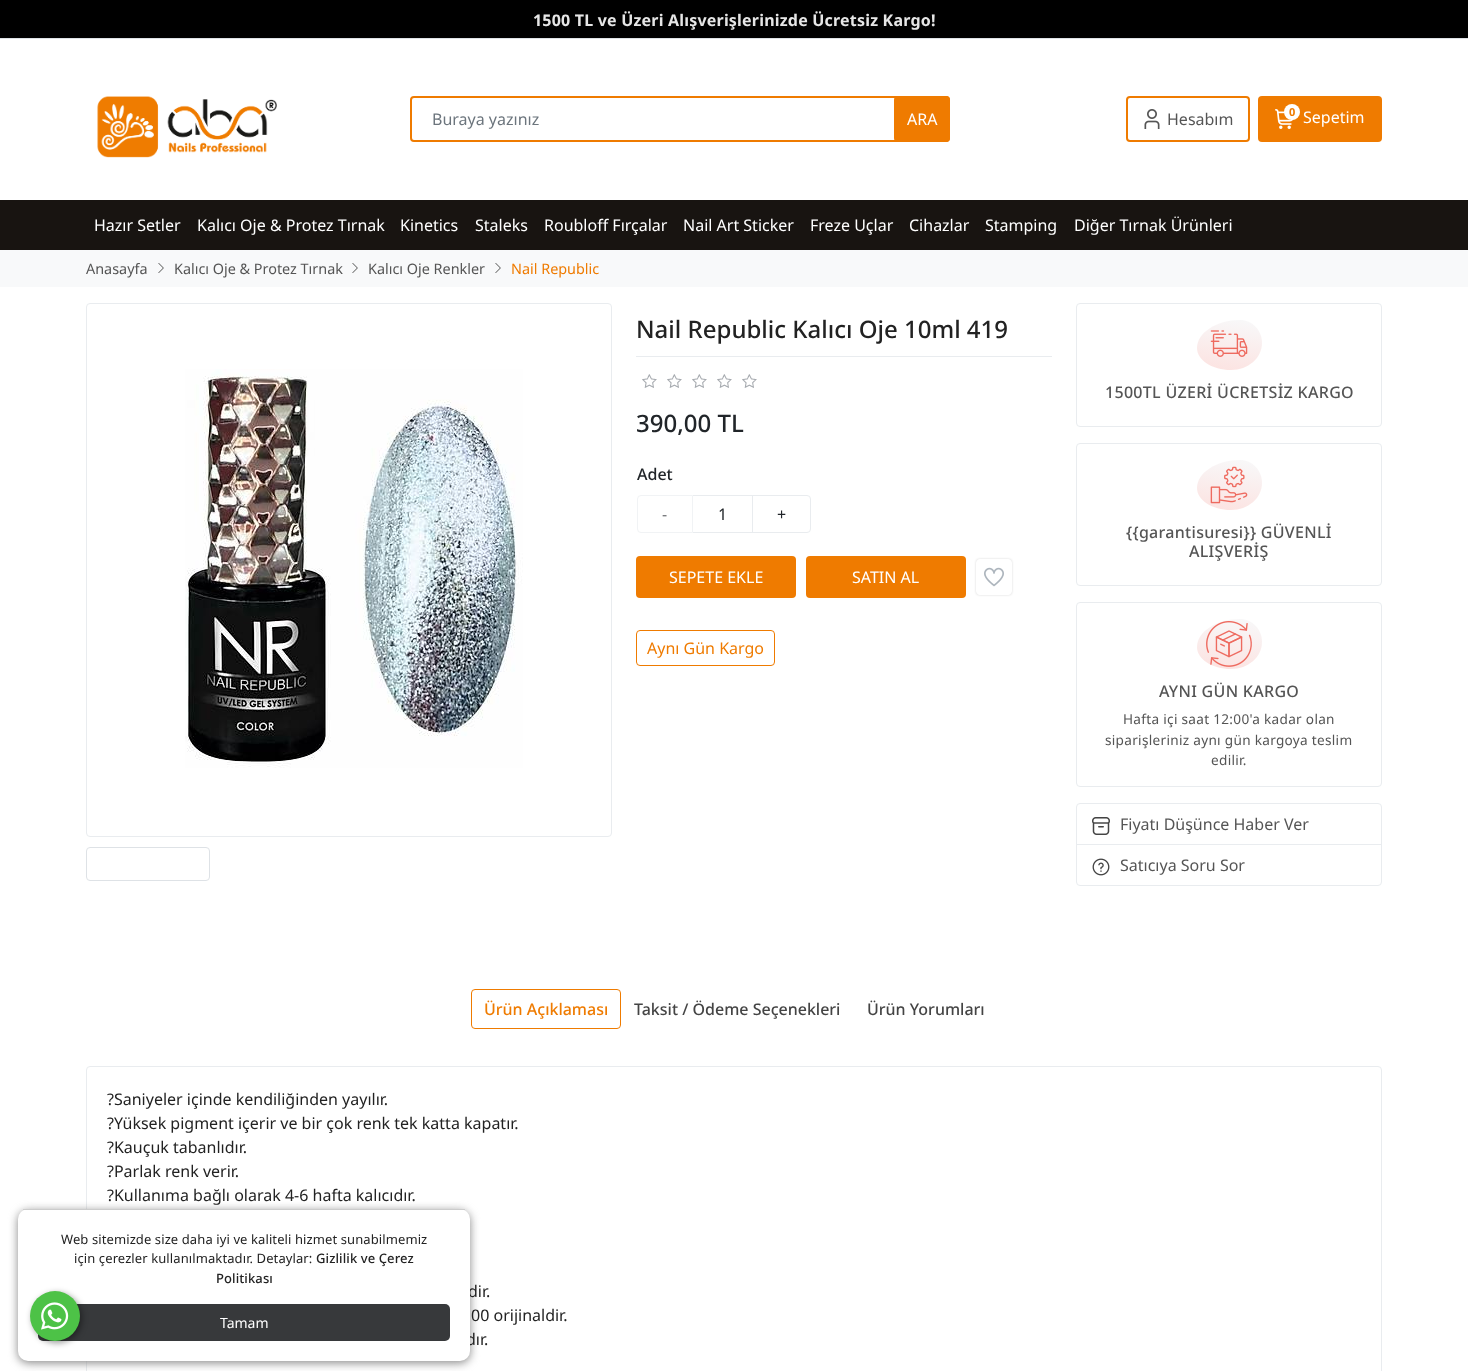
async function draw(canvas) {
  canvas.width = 1468;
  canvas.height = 1371;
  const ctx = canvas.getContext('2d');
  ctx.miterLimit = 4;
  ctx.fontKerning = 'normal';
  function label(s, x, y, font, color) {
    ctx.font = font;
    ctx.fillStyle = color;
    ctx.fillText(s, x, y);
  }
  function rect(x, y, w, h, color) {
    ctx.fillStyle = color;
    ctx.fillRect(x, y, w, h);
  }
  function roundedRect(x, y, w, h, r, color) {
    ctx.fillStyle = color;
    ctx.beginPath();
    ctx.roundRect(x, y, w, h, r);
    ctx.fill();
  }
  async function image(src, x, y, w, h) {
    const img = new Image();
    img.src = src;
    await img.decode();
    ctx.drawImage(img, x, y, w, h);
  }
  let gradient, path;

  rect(0, 0, 1468, 1371, '#fff');
  rect(0, 0, 1468, 38, '#000');
  ctx.letterSpacing = '0.2px';
  label('1500 TL ve Üzeri Alışverişlerinizde Ücretsiz Kargo!', 533, 26, 'bold 16px Noto Sans', '#e6e6e6');
  ctx.beginPath();
  ctx.roundRect(86.5, 1066.5, 1295, 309, 3.5);
  ctx.strokeStyle = '#e9ecef';
  ctx.stroke();
  ctx.fillStyle = '#888';
  ctx.filter = 'blur(5px)';
  ctx.beginPath();
  ctx.roundRect(18, 1211, 452, 152, 10);
  ctx.fill();
  ctx.filter = 'none';
  ctx.letterSpacing = '0px';
  label('dir.', 468, 1297, '16px Noto Sans', '#222');
  label('dır.', 466, 1345, '16px Noto Sans', '#222');
  roundedRect(18, 1209, 452, 152, 10, '#fff');
  roundedRect(38, 1304, 412, 37, 5, '#37393b');
  ctx.fillStyle = '#00000066';
  ctx.filter = 'blur(3px)';
  ctx.beginPath();
  ctx.roundRect(32, 1293, 50, 50, 25);
  ctx.fill();
  ctx.filter = 'none';
  ctx.fillStyle = '#4dc247';
  ctx.beginPath();
  ctx.arc(55, 1316, 25, 0, 2 * Math.PI);
  ctx.fill();
  await image('assets/img1.png', 41, 1302, 28, 28);
  rect(0, 38, 1468, 1, '#dee2e6');
  await image('assets/img2.png', 97, 96, 180, 62);
  ctx.beginPath();
  ctx.roundRect(411, 97, 538, 44, 3);
  ctx.strokeStyle = '#ef7b00';
  ctx.lineWidth = 2;
  ctx.stroke();
  label('Buraya yazınız', 432, 125, '16px Noto Sans', '#6c757d');
  roundedRect(894, 96, 56, 46, 4, '#ef7b00');
  label('ARA', 907, 125, '16px Noto Sans', '#fff');
  ctx.beginPath();
  ctx.roundRect(1127, 97, 122, 44, 3);
  ctx.stroke();
  await image('assets/img3.png', 1144, 109, 16, 20);
  label('Hesabım', 1167, 125, '16px Noto Sans', '#555');
  roundedRect(1258, 96, 124, 46, 4, '#ef7b00');
  await image('assets/img4.png', 1275, 109, 19, 20);
  ctx.fillStyle = '#fff';
  ctx.beginPath();
  ctx.arc(1292, 112, 8, 0, 2 * Math.PI);
  ctx.fill();
  label('0', 1289, 116, 'bold 11px Noto Sans', '#ef7b00');
  label('Sepetim', 1303, 123, '16px Noto Sans', '#fff');
  rect(0, 200, 1468, 50, '#181411');
  label('Hazır Setler', 94, 231, '16px Noto Sans', '#fff');
  label('Kalıcı Oje & Protez Tırnak', 197, 231, '16px Noto Sans', '#fff');
  label('Kinetics', 400, 231, '16px Noto Sans', '#fff');
  label('Staleks', 475, 231, '16px Noto Sans', '#fff');
  label('Roubloff Fırçalar', 544, 231, '16px Noto Sans', '#fff');
  label('Nail Art Sticker', 683, 231, '16px Noto Sans', '#fff');
  label('Freze Uçlar', 810, 231, '16px Noto Sans', '#fff');
  label('Cihazlar', 909, 231, '16px Noto Sans', '#fff');
  label('Stamping', 985, 231, '16px Noto Sans', '#fff');
  label('Diğer Tırnak Ürünleri', 1074, 231, '16px Noto Sans', '#fff');
  rect(23, 1209, 442, 1, '#ccc');
  ctx.letterSpacing = '0.1px';
  label('Web sitemizde size daha iyi ve kaliteli hizmet sunabilmemiz', 61, 1244, '13px Noto Sans', '#222');
  label('için çerezler kullanılmaktadır. Detaylar:', 74, 1263, '13px Noto Sans', '#222');
  label('Gizlilik ve Çerez', 316, 1263, '500 13px Noto Sans', '#222');
  label('Politikası', 216, 1283, '500 13px Noto Sans', '#222');
  ctx.letterSpacing = '0px';
  label('Tamam', 220, 1328, '14px Noto Sans', '#fff');
  rect(0, 250, 1468, 37, '#f8f9fa');
  label('Anasayfa', 86, 274, '14.4px Noto Sans', '#555');
  await image('assets/img5.png', 158, 263, 6, 10);
  label('Kalıcı Oje & Protez Tırnak', 174, 274, '14.4px Noto Sans', '#555');
  await image('assets/img5.png', 352, 263, 6, 10);
  label('Kalıcı Oje Renkler', 368, 274, '14.4px Noto Sans', '#555');
  await image('assets/img5.png', 495, 263, 6, 10);
  label('Nail Republic', 511, 274, '14.4px Noto Sans', '#ef7b00');
  ctx.beginPath();
  ctx.roundRect(86.5, 303.5, 525, 533, 3.5);
  ctx.strokeStyle = '#e9ecef';
  ctx.lineWidth = 1;
  ctx.stroke();
  await image('assets/img6.png', 185, 369, 338, 399);
  ctx.beginPath();
  ctx.roundRect(86.5, 847.5, 123, 33, 3.5);
  ctx.strokeStyle = '#dee2e6';
  ctx.stroke();
  rect(636, 356, 416, 1, '#e9ecef');
  label('Nail Republic Kalıcı Oje 10ml 419', 636, 338, '500 24px Noto Sans', '#222');
  await image('assets/img7.png', 642, 374, 115, 14);
  label('390,00 TL', 636, 432, '500 24px Noto Sans', '#212529');
  label('Adet', 637, 480, '500 16px Noto Sans', '#212529');
  ctx.beginPath();
  ctx.roundRect(637.5, 495.5, 55, 37, [3.5, 0, 0, 3.5]);
  ctx.strokeStyle = '#f1f3f5';
  ctx.stroke();
  label('-', 662, 520, '16px Noto Sans', '#6f7174');
  rect(693, 495, 60, 1, '#e9ecef');
  rect(693, 532, 60, 1, '#e9ecef');
  label('1', 718, 520, '16px Noto Sans', '#212529');
  ctx.beginPath();
  ctx.roundRect(752.5, 495.5, 58, 37, [0, 3.5, 3.5, 0]);
  ctx.strokeStyle = '#e9ecef';
  ctx.stroke();
  label('+', 777, 520, '16px Noto Sans', '#212529');
  roundedRect(636, 556, 160, 42, 4, '#ef7b00');
  label('SEPETE EKLE', 669, 583, '16px Noto Sans', '#fff');
  roundedRect(806, 556, 160, 42, 4, '#ef7b00');
  label('SATIN AL', 852, 583, '16px Noto Sans', '#fff');
  ctx.save();
  path = new Path2D('M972 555H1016V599H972ZM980 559H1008C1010 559 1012 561 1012 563V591C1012 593 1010 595 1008 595H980C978 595 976 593 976 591V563C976 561 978 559 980 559Z');
  ctx.clip(path, 'evenodd');
  ctx.fillStyle = '#00000026';
  ctx.filter = 'blur(1px)';
  ctx.beginPath();
  ctx.roundRect(976, 559, 36, 36, 4);
  ctx.fill();
  ctx.filter = 'none';
  ctx.restore();
  await image('assets/img8.png', 984, 567, 20, 20);
  ctx.beginPath();
  ctx.roundRect(636.5, 630.5, 138, 35, 3.5);
  ctx.strokeStyle = '#ef7b00';
  ctx.stroke();
  label('Aynı Gün Kargo', 647, 654, '16px Noto Sans', '#ef7b00');
  ctx.beginPath();
  ctx.roundRect(1076.5, 303.5, 305, 123, 3.5);
  ctx.strokeStyle = '#e9ecef';
  ctx.stroke();
  gradient = ctx.createLinearGradient(1234, 316, 1225, 374);
  gradient.addColorStop(0, '#bf953f');
  gradient.addColorStop(0, '#4d9668');
  gradient.addColorStop(0, '#f8f9fa');
  gradient.addColorStop(1, '#fce2e0');
  gradient.addColorStop(1, '#4d9668');
  gradient.addColorStop(1, '#ee6a5f');
  ctx.fillStyle = gradient;
  path = new Path2D('M1240 320C1252 320 1262 330 1262 343C1262 358 1248 370 1231 370C1212 370 1197 360 1197 348C1197 333 1216 320 1240 320Z');
  ctx.fill(path);
  await image('assets/img9.png', 1210, 330, 38, 27);
  ctx.letterSpacing = '0.3px';
  label('1500TL ÜZERİ ÜCRETSİZ KARGO', 1105, 398, '500 16px Noto Sans', '#555');
  ctx.beginPath();
  ctx.roundRect(1076.5, 443.5, 305, 142, 3.5);
  ctx.stroke();
  gradient = ctx.createLinearGradient(1234, 456, 1225, 514);
  gradient.addColorStop(0, '#bf953f');
  gradient.addColorStop(0, '#4d9668');
  gradient.addColorStop(0, '#f8f9fa');
  gradient.addColorStop(1, '#fce2e0');
  gradient.addColorStop(1, '#4d9668');
  gradient.addColorStop(1, '#ee6a5f');
  ctx.fillStyle = gradient;
  path = new Path2D('M1240 460C1252 460 1262 470 1262 483C1262 498 1248 510 1231 510C1212 510 1197 500 1197 488C1197 473 1216 460 1240 460Z');
  ctx.fill(path);
  await image('assets/img10.png', 1210, 466, 38, 38);
  label('{{garantisuresi}} GÜVENLİ', 1126, 538, '500 16px Noto Sans', '#555');
  label('ALIŞVERİŞ', 1189, 557, '500 16px Noto Sans', '#555');
  ctx.beginPath();
  ctx.roundRect(1076.5, 602.5, 305, 184, 3.5);
  ctx.stroke();
  gradient = ctx.createLinearGradient(1234, 615, 1225, 673);
  gradient.addColorStop(0, '#bf953f');
  gradient.addColorStop(0, '#4d9668');
  gradient.addColorStop(0, '#f8f9fa');
  gradient.addColorStop(1, '#fce2e0');
  gradient.addColorStop(1, '#4d9668');
  gradient.addColorStop(1, '#ee6a5f');
  ctx.fillStyle = gradient;
  path = new Path2D('M1240 619C1252 619 1262 629 1262 642C1262 657 1248 669 1231 669C1212 669 1197 659 1197 647C1197 632 1216 619 1240 619Z');
  ctx.fill(path);
  await image('assets/img11.png', 1206, 621, 46, 46);
  label('AYNI GÜN KARGO', 1159, 697, '500 16px Noto Sans', '#555');
  label('Hafta içi saat 12:00\'a kadar olan', 1123, 724, '13.6px Noto Sans', '#555');
  label('siparişleriniz aynı gün kargoya teslim', 1105, 745, '13.6px Noto Sans', '#555');
  label('edilir.', 1211, 765, '13.6px Noto Sans', '#555');
  ctx.beginPath();
  ctx.roundRect(1076.5, 803.5, 305, 82, 3.5);
  ctx.stroke();
  await image('assets/img12.png', 1092, 817, 18, 18);
  ctx.letterSpacing = '0px';
  label('Fiyatı Düşünce Haber Ver', 1120, 830, '16px Noto Sans', '#555');
  rect(1077, 844, 304, 1, '#e9ecef');
  await image('assets/img13.png', 1092, 858, 18, 18);
  label('Satıcıya Soru Sor', 1120, 871, '16px Noto Sans', '#555');
  ctx.beginPath();
  ctx.roundRect(471.5, 989.5, 149, 39, 3.5);
  ctx.strokeStyle = '#ef7b00';
  ctx.stroke();
  label('Ürün Açıklaması', 484, 1015, '500 16px Noto Sans', '#ef7b00');
  label('Taksit / Ödeme Seçenekleri', 634, 1015, '500 16px Noto Sans', '#444');
  label('Ürün Yorumları', 867, 1015, '500 16px Noto Sans', '#444');
  label('?Saniyeler içinde kendiliğinden yayılır.', 107, 1105, '16px Noto Sans', '#222');
  label('?Yüksek pigment içerir ve bir çok renk tek katta kapatır.', 107, 1129, '16px Noto Sans', '#222');
  label('?Kauçuk tabanlıdır.', 107, 1153, '16px Noto Sans', '#222');
  label('?Parlak renk verir.', 107, 1177, '16px Noto Sans', '#222');
  label('?Kullanıma bağlı olarak 4-6 hafta kalıcıdır.', 107, 1201, '16px Noto Sans', '#222');
  label('00 orijinaldir.', 471, 1321, '16px Noto Sans', '#222');
}

draw(document.querySelector('canvas'));
